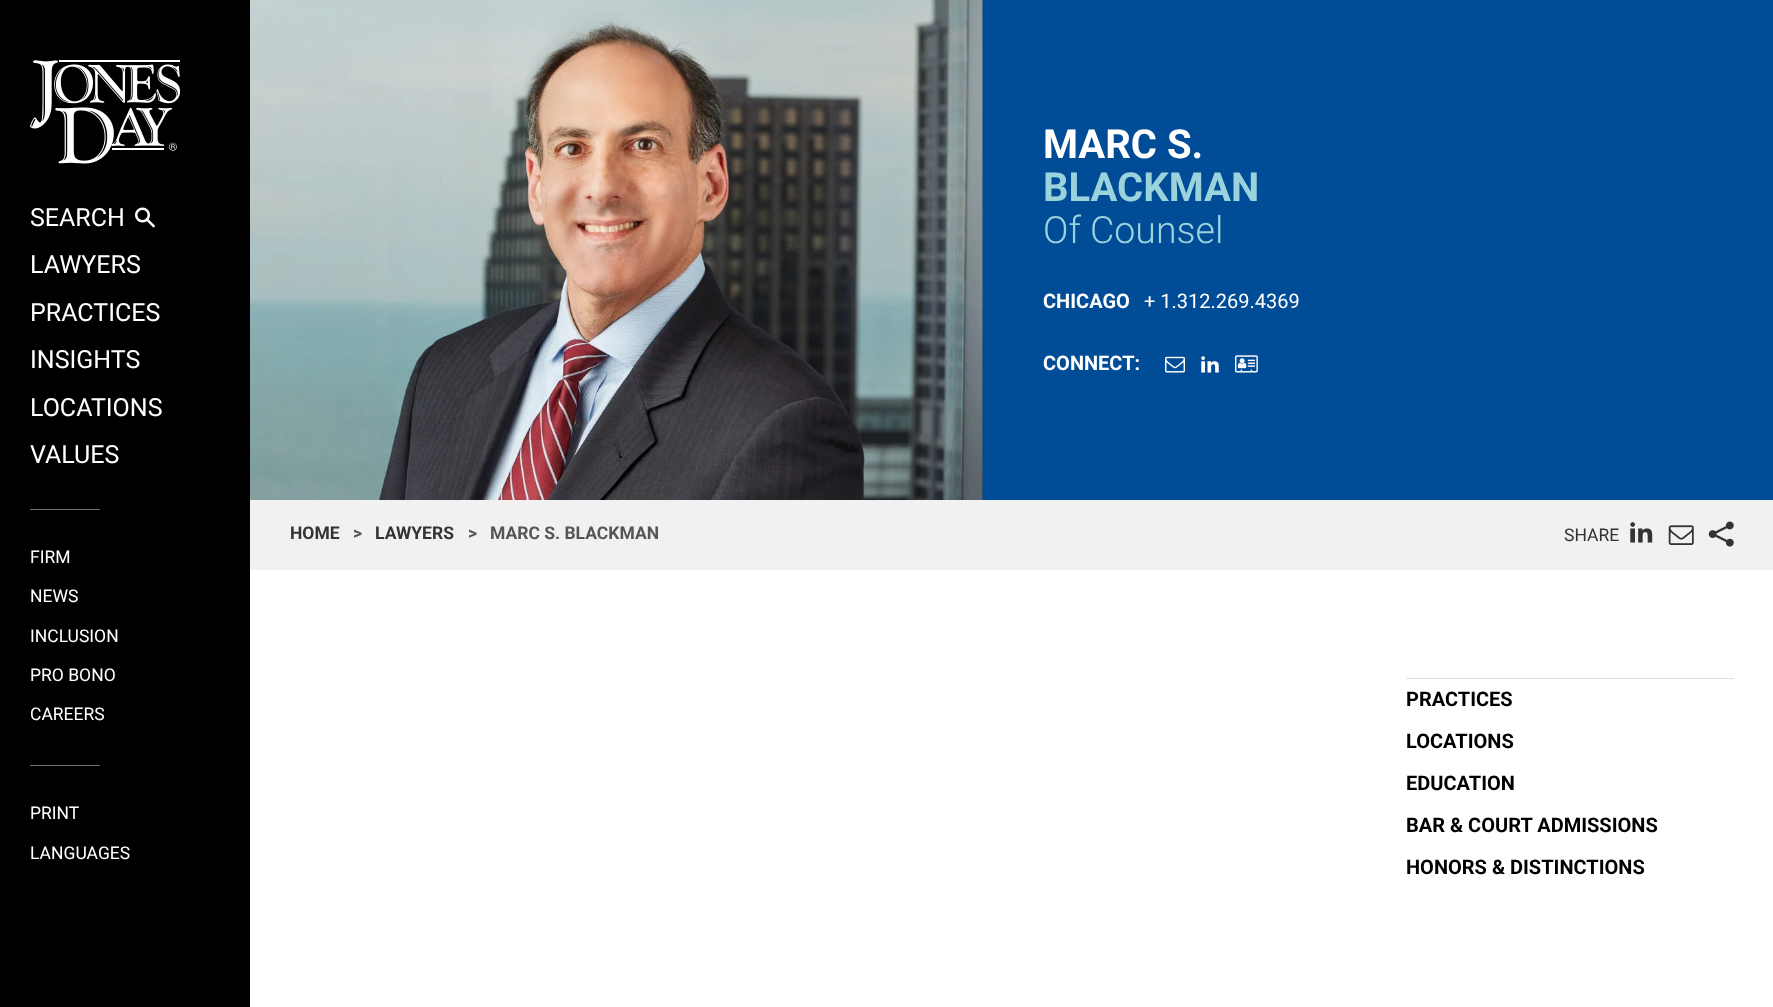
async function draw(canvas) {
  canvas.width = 1773;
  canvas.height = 1007;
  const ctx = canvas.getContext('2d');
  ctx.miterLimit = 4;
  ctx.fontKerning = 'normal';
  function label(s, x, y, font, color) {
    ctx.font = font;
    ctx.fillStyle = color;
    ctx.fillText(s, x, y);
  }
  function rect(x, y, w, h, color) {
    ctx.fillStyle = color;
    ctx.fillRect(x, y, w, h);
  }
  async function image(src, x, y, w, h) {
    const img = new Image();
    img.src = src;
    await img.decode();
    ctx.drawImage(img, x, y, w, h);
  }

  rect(0, 0, 1773, 1007, '#fff');
  rect(0, 0, 250, 1007, '#000');
  await image('assets/img1.png', 30, 60, 150, 104);
  label('SEARCH', 30, 226, '25px Roboto', '#fff');
  await image('assets/img2.png', 135, 207, 20, 21);
  label('LAWYERS', 30, 273, '25px Roboto', '#fff');
  label('PRACTICES', 30, 321, '25px Roboto', '#fff');
  label('INSIGHTS', 30, 368, '25px Roboto', '#fff');
  label('LOCATIONS', 30, 416, '25px Roboto', '#fff');
  label('VALUES', 30, 463, '25px Roboto', '#fff');
  rect(30, 509, 70, 1, '#6f6f6f');
  label('FIRM', 30, 563, '17.5px Roboto', '#fff');
  label('NEWS', 30, 602, '17.5px Roboto', '#fff');
  label('INCLUSION', 30, 642, '17.5px Roboto', '#fff');
  label('PRO BONO', 30, 681, '17.5px Roboto', '#fff');
  label('CAREERS', 30, 720, '17.5px Roboto', '#fff');
  rect(30, 765, 70, 1, '#6f6f6f');
  label('PRINT', 30, 819, '17.5px Roboto', '#fff');
  label('LANGUAGES', 30, 859, '17.5px Roboto', '#fff');
  rect(983, 0, 790, 500, '#004c97');
  rect(982, 0, 1, 500, '#003972');
  await image('assets/img3.png', 250, 0, 733, 500);
  label('MARC S.', 1043, 158, 'bold 40px Roboto', '#fff');
  label('BLACKMAN', 1043, 201, 'bold 40px Roboto', '#9bd3dd');
  label('Of Counsel', 1043, 243, '300 37.5px Roboto', '#9bd3dd');
  label('CHICAGO', 1043, 308, 'bold 20px Roboto', '#fff');
  label('+ 1.312.269.4369', 1144, 308, '20px Roboto', '#fff');
  label('CONNECT:', 1043, 370, 'bold 20px Roboto', '#fff');
  await image('assets/img4.png', 1165, 356, 20, 17);
  await image('assets/img5.png', 1201, 356, 18, 17);
  await image('assets/img6.png', 1235, 355, 23, 18);
  rect(250, 500, 1523, 70, '#f1f1f1');
  label('HOME', 290, 539, 'bold 17.5px Roboto', '#333');
  label('>', 353, 539, 'bold 17.5px Roboto', '#555');
  label('LAWYERS', 375, 539, 'bold 17.5px Roboto', '#333');
  label('>', 468, 539, 'bold 17.5px Roboto', '#555');
  label('MARC S. BLACKMAN', 490, 539, 'bold 17.5px Roboto', '#555');
  label('SHARE', 1564, 541, '17.5px Roboto', '#333');
  await image('assets/img7.png', 1630, 522, 23, 21);
  await image('assets/img8.png', 1668, 525, 26, 20);
  await image('assets/img9.png', 1708, 521, 26, 26);
  rect(1406, 678, 328, 1, '#ddd');
  label('PRACTICES', 1406, 706, 'bold 20px Roboto', '#000');
  label('LOCATIONS', 1406, 748, 'bold 20px Roboto', '#000');
  label('EDUCATION', 1406, 790, 'bold 20px Roboto', '#000');
  label('BAR & COURT ADMISSIONS', 1406, 832, 'bold 20px Roboto', '#000');
  label('HONORS & DISTINCTIONS', 1406, 874, 'bold 20px Roboto', '#000');
}

draw(document.querySelector('canvas'));
